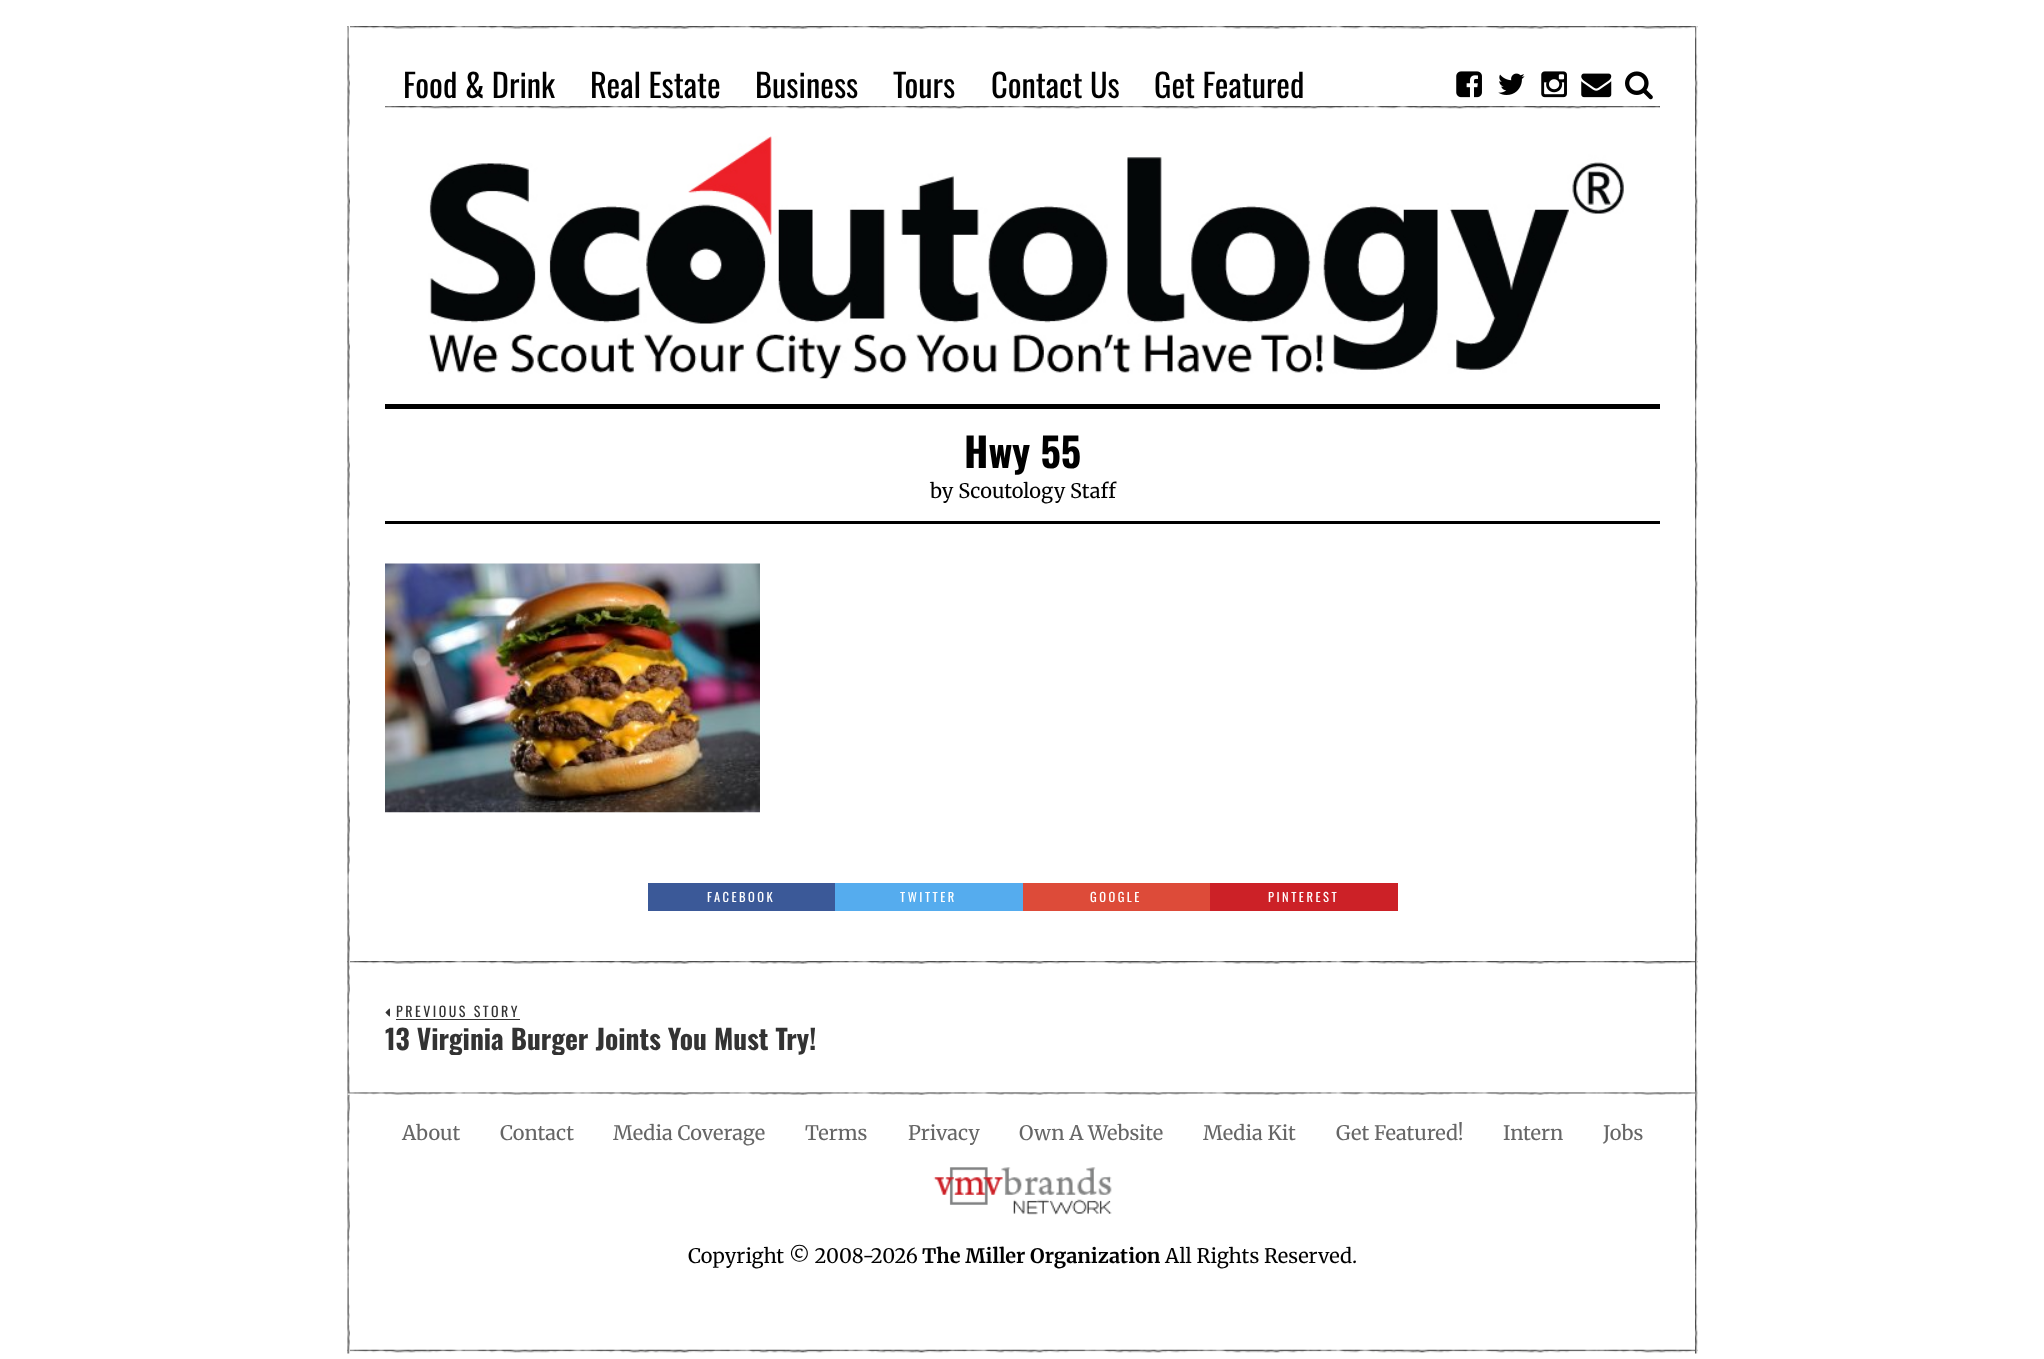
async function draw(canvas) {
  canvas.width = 2044;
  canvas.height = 1359;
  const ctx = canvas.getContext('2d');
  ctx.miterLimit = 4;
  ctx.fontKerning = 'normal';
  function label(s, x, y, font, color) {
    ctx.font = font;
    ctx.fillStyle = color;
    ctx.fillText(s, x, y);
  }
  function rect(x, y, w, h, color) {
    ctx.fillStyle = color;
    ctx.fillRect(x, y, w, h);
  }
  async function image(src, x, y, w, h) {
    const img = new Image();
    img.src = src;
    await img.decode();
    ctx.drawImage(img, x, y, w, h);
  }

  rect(0, 0, 2044, 1359, '#fff');
  await image('assets/img1.png', 347, 26, 1351, 3);
  await image('assets/img12.png', 347, 961, 1351, 3);
  await image('assets/img14.png', 347, 1349, 1351, 4);
  await image('assets/img2.png', 347, 26, 3, 1328);
  label('Food & Drink', 403, 98, '32.5px Oswald', '#000');
  label('Real Estate', 590, 98, '32.5px Oswald', '#000');
  label('Business', 755, 98, '32.5px Oswald', '#000');
  label('Tours', 893, 98, '32.5px Oswald', '#000');
  label('Contact Us', 991, 98, '32.5px Oswald', '#000');
  label('Get Featured', 1154, 98, '32.5px Oswald', '#000');
  await image('assets/img3.png', 1456, 71, 26, 27);
  await image('assets/img4.png', 1498, 73, 27, 22);
  await image('assets/img5.png', 1541, 71, 26, 27);
  await image('assets/img6.png', 1581, 73, 31, 25);
  await image('assets/img7.png', 1625, 71, 28, 29);
  await image('assets/img8.png', 385, 106, 1275, 3);
  await image('assets/img15.png', 347, 1092, 1351, 3);
  await image('assets/img9.png', 1695, 26, 3, 1328);
  await image('assets/img10.png', 428, 136, 1196, 243);
  rect(385, 404, 1275, 5, '#000');
  rect(385, 521, 1275, 3, '#000');
  label('Hwy 55', 964, 468, 'bold 40px Oswald', '#000');
  label('by Scoutology Staff', 930, 498, '20px Merriweather', '#000');
  await image('assets/img11.png', 385, 563, 375, 250);
  rect(648, 883, 187, 28, '#3b5998');
  ctx.letterSpacing = '2.5px';
  label('FACEBOOK', 707, 902, '12.5px Oswald', '#fff');
  rect(835, 883, 188, 28, '#55acee');
  label('TWITTER', 900, 902, '12.5px Oswald', '#fff');
  rect(1023, 883, 187, 28, '#dd4b39');
  label('GOOGLE', 1090, 902, '12.5px Oswald', '#fff');
  rect(1210, 883, 188, 28, '#cc2127');
  label('PINTEREST', 1268, 902, '12.5px Oswald', '#fff');
  await image('assets/img13.png', 385, 1008, 5, 9);
  label('PREVIOUS STORY', 396, 1017, '14px Oswald', '#333');
  rect(396, 1019, 124, 1, '#333');
  ctx.save();
  ctx.beginPath();
  ctx.rect(385, 1001, 1275, 54);
  ctx.clip();
  ctx.letterSpacing = '0px';
  label('13 Virginia Burger Joints You Must Try!', 385, 1050, 'bold 27.5px Oswald', '#333');
  ctx.restore();
  ctx.letterSpacing = '0px';
  label('About', 402, 1140, '20px Merriweather', '#666');
  label('Contact', 500, 1140, '20px Merriweather', '#666');
  label('Media Coverage', 613, 1140, '20px Merriweather', '#666');
  label('Terms', 805, 1140, '20px Merriweather', '#666');
  label('Privacy', 908, 1140, '20px Merriweather', '#666');
  label('Own A Website', 1019, 1140, '20px Merriweather', '#666');
  label('Media Kit', 1203, 1140, '20px Merriweather', '#666');
  label('Get Featured!', 1336, 1140, '20px Merriweather', '#666');
  label('Intern', 1503, 1140, '20px Merriweather', '#666');
  label('Jobs', 1603, 1140, '20px Merriweather', '#666');
  await image('assets/img16.png', 933, 1167, 179, 48);
  label('Copyright © 2008-2026', 688, 1263, '20px Merriweather', '#000');
  label('The Miller Organization', 922, 1263, 'bold 20px Merriweather', '#000');
  label('All Rights Reserved.', 1165, 1263, '20px Merriweather', '#000');
}

draw(document.querySelector('canvas'));
